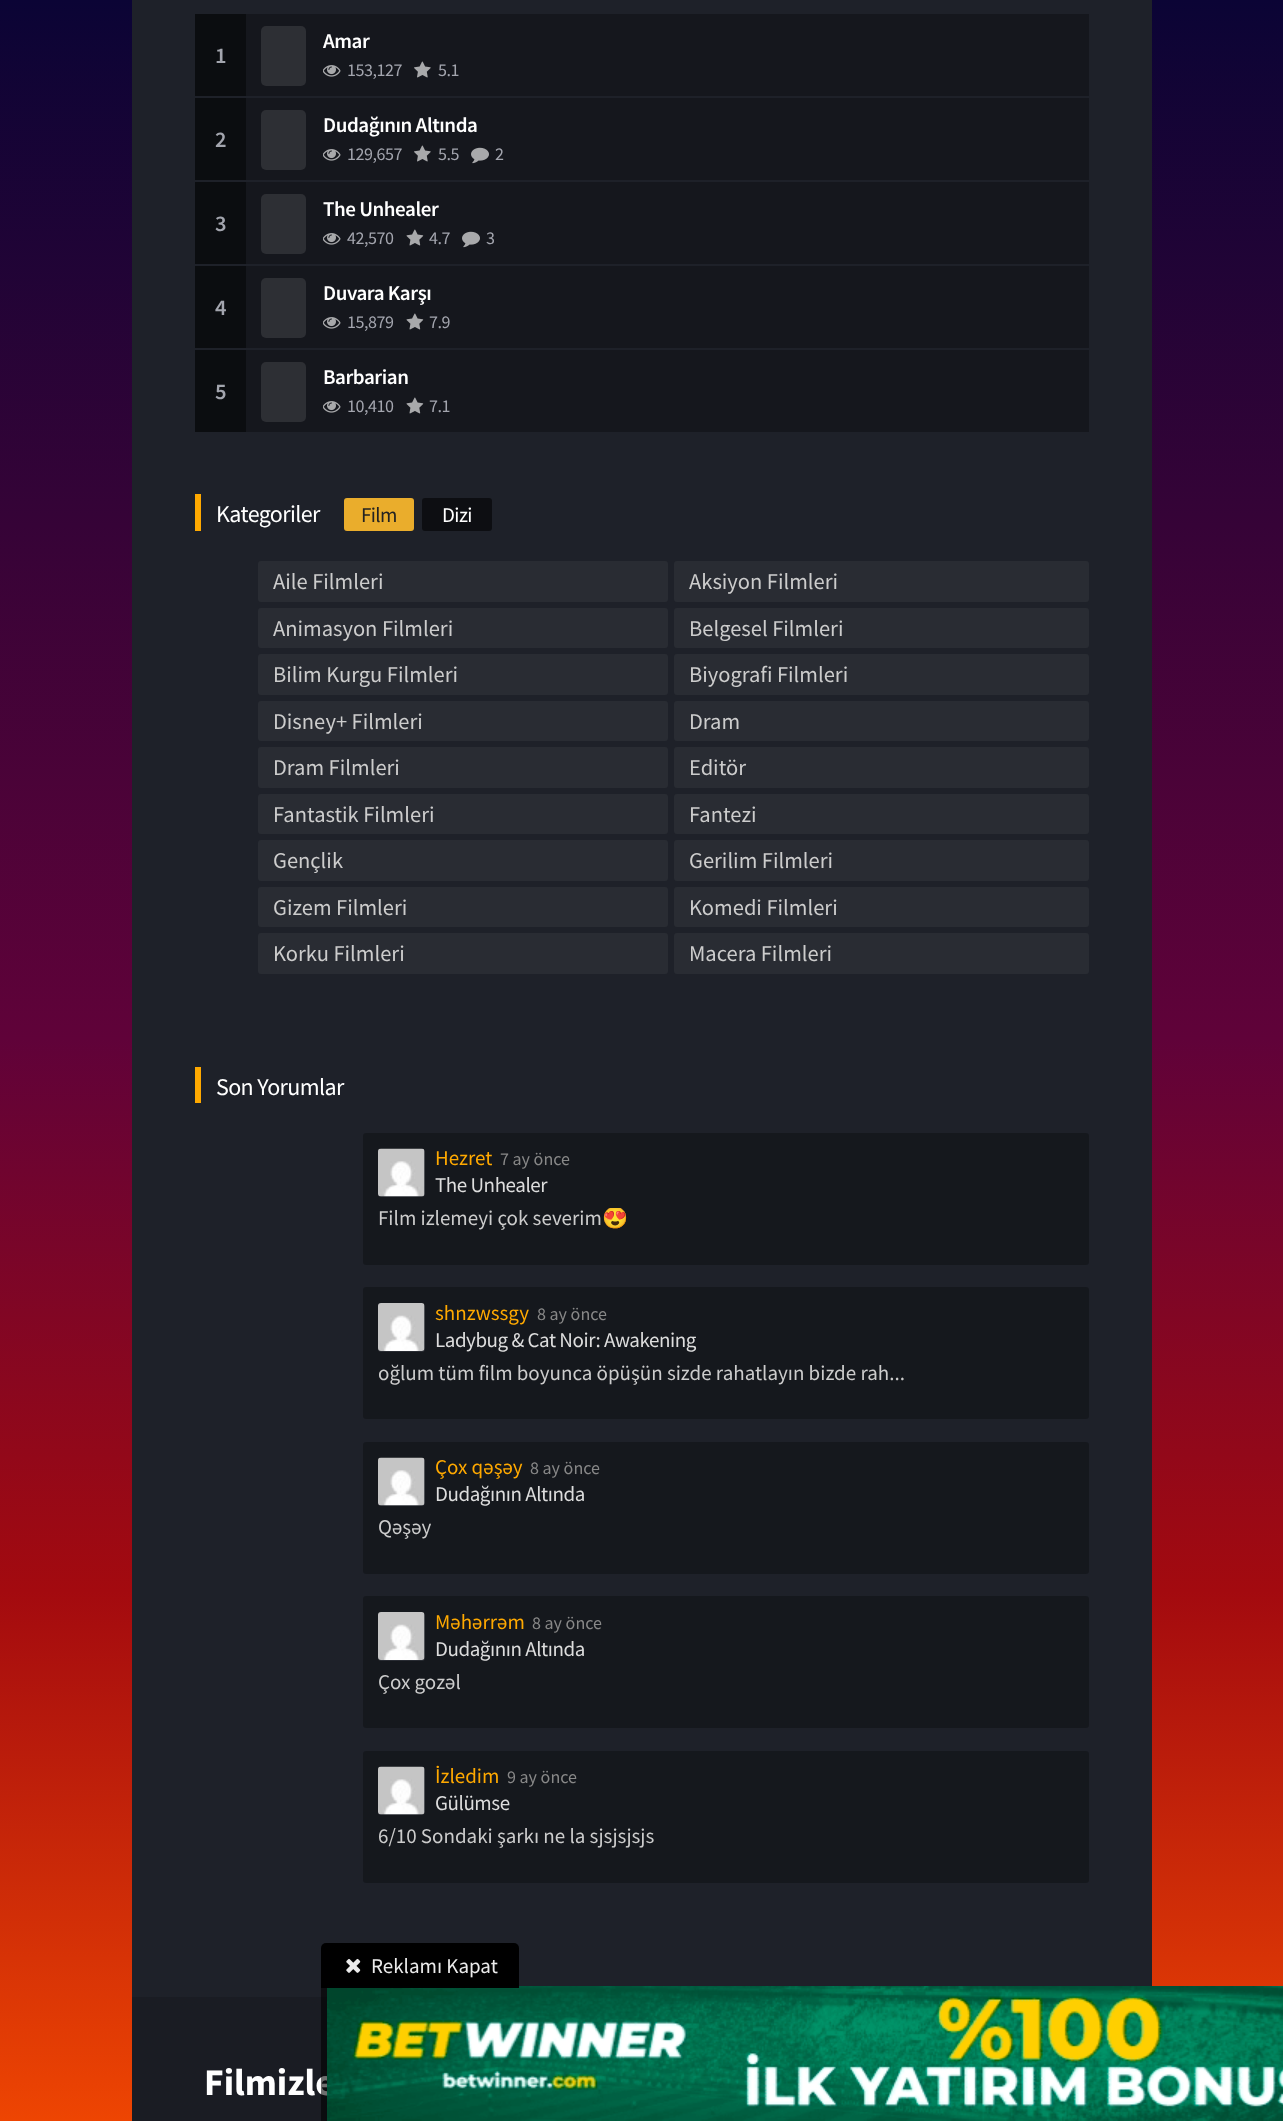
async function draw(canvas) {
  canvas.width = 1283;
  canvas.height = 2121;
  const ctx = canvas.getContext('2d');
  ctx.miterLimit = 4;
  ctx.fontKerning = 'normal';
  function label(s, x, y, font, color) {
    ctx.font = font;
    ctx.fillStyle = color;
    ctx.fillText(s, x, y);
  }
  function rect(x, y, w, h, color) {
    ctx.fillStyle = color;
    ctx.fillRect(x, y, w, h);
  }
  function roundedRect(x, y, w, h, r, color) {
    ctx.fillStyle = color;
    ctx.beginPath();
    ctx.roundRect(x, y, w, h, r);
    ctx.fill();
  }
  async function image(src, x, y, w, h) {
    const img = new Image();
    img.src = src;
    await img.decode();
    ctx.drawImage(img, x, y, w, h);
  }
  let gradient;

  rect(0, 0, 1283, 2121, '#fff');
  gradient = ctx.createLinearGradient(642, 0, 642, 2121);
  gradient.addColorStop(0, '#0b0435');
  gradient.addColorStop(0.49, '#600239');
  gradient.addColorStop(0.75, '#a30a0f');
  gradient.addColorStop(1, '#ee4502');
  ctx.fillStyle = gradient;
  ctx.fillRect(0, 0, 1283, 2121);
  rect(132, 0, 1020, 1997, '#1e2129');
  rect(246, 14, 843, 82, '#15171d');
  rect(195, 14, 51, 82, '#0b0d10');
  ctx.letterSpacing = '-0.45px';
  label('1', 215, 63, '600 22.5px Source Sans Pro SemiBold', '#a3a5ae');
  roundedRect(261, 26, 45, 60, 5, '#2d2f34');
  label('Amar', 323, 48, '600 21px Source Sans Pro SemiBold', '#fff');
  await image('assets/img1.png', 323, 65, 18, 12);
  label('153,127', 347, 76, '18px Source Sans Pro', '#a3a5ae');
  await image('assets/img2.png', 414, 61, 17, 17);
  label('5.1', 438, 76, '18px Source Sans Pro', '#a3a5ae');
  rect(246, 98, 843, 82, '#15171d');
  rect(195, 98, 51, 82, '#0b0d10');
  label('2', 215, 147, '600 22.5px Source Sans Pro SemiBold', '#a3a5ae');
  roundedRect(261, 110, 45, 60, 5, '#2d2f34');
  label('Dudağının Altında', 323, 132, '600 21px Source Sans Pro SemiBold', '#fff');
  await image('assets/img1.png', 323, 149, 18, 12);
  label('129,657', 347, 160, '18px Source Sans Pro', '#a3a5ae');
  await image('assets/img2.png', 414, 145, 17, 17);
  label('5.5', 438, 160, '18px Source Sans Pro', '#a3a5ae');
  await image('assets/img3.png', 471, 147, 18, 17);
  label('2', 495, 160, '18px Source Sans Pro', '#a3a5ae');
  rect(246, 182, 843, 82, '#15171d');
  rect(195, 182, 51, 82, '#0b0d10');
  label('3', 215, 231, '600 22.5px Source Sans Pro SemiBold', '#a3a5ae');
  roundedRect(261, 194, 45, 60, 5, '#2d2f34');
  label('The Unhealer', 323, 216, '600 21px Source Sans Pro SemiBold', '#fff');
  await image('assets/img1.png', 323, 233, 18, 12);
  label('42,570', 347, 244, '18px Source Sans Pro', '#a3a5ae');
  await image('assets/img4.png', 406, 229, 18, 17);
  label('4.7', 429, 244, '18px Source Sans Pro', '#a3a5ae');
  await image('assets/img3.png', 462, 231, 18, 17);
  label('3', 486, 244, '18px Source Sans Pro', '#a3a5ae');
  rect(246, 266, 843, 82, '#15171d');
  rect(195, 266, 51, 82, '#0b0d10');
  label('4', 215, 315, '600 22.5px Source Sans Pro SemiBold', '#a3a5ae');
  roundedRect(261, 278, 45, 60, 5, '#2d2f34');
  label('Duvara Karşı', 323, 300, '600 21px Source Sans Pro SemiBold', '#fff');
  await image('assets/img1.png', 323, 317, 18, 12);
  label('15,879', 347, 328, '18px Source Sans Pro', '#a3a5ae');
  await image('assets/img4.png', 406, 313, 18, 17);
  label('7.9', 429, 328, '18px Source Sans Pro', '#a3a5ae');
  rect(246, 350, 843, 82, '#15171d');
  rect(195, 350, 51, 82, '#0b0d10');
  label('5', 215, 399, '600 22.5px Source Sans Pro SemiBold', '#a3a5ae');
  roundedRect(261, 362, 45, 60, 5, '#2d2f34');
  label('Barbarian', 323, 384, '600 21px Source Sans Pro SemiBold', '#fff');
  await image('assets/img1.png', 323, 401, 18, 12);
  label('10,410', 347, 412, '18px Source Sans Pro', '#a3a5ae');
  await image('assets/img4.png', 406, 397, 18, 17);
  label('7.1', 429, 412, '18px Source Sans Pro', '#a3a5ae');
  rect(195, 494, 6, 37, '#ffa900');
  ctx.letterSpacing = '-0.6px';
  label('Kategoriler', 216, 522, '24px Source Sans Pro', '#fff');
  roundedRect(344, 498, 70, 33, 3, '#eaad2c');
  label('Film', 361, 522, '21px Source Sans Pro', '#222');
  roundedRect(422, 498, 70, 33, 3, '#0000008f');
  label('Dizi', 442, 522, '21px Source Sans Pro', '#fff');
  roundedRect(258, 561, 410, 41, 3, '#292c33');
  ctx.letterSpacing = '0px';
  label('Aile Filmleri', 273, 589, '22.5px Source Sans Pro', '#ccc');
  roundedRect(674, 561, 415, 41, 3, '#292c33');
  label('Aksiyon Filmleri', 689, 589, '22.5px Source Sans Pro', '#ccc');
  roundedRect(258, 608, 410, 40, 3, '#292c33');
  label('Animasyon Filmleri', 273, 636, '22.5px Source Sans Pro', '#ccc');
  roundedRect(674, 608, 415, 40, 3, '#292c33');
  label('Belgesel Filmleri', 689, 636, '22.5px Source Sans Pro', '#ccc');
  roundedRect(258, 654, 410, 41, 3, '#292c33');
  label('Bilim Kurgu Filmleri', 273, 682, '22.5px Source Sans Pro', '#ccc');
  roundedRect(674, 654, 415, 41, 3, '#292c33');
  label('Biyografi Filmleri', 689, 682, '22.5px Source Sans Pro', '#ccc');
  roundedRect(258, 701, 410, 40, 3, '#292c33');
  label('Disney+ Filmleri', 273, 729, '22.5px Source Sans Pro', '#ccc');
  roundedRect(674, 701, 415, 40, 3, '#292c33');
  label('Dram', 689, 729, '22.5px Source Sans Pro', '#ccc');
  roundedRect(258, 747, 410, 41, 3, '#292c33');
  label('Dram Filmleri', 273, 775, '22.5px Source Sans Pro', '#ccc');
  roundedRect(674, 747, 415, 41, 3, '#292c33');
  label('Editör', 689, 775, '22.5px Source Sans Pro', '#ccc');
  roundedRect(258, 794, 410, 40, 3, '#292c33');
  label('Fantastik Filmleri', 273, 822, '22.5px Source Sans Pro', '#ccc');
  roundedRect(674, 794, 415, 40, 3, '#292c33');
  label('Fantezi', 689, 822, '22.5px Source Sans Pro', '#ccc');
  roundedRect(258, 840, 410, 41, 3, '#292c33');
  label('Gençlik', 273, 868, '22.5px Source Sans Pro', '#ccc');
  roundedRect(674, 840, 415, 41, 3, '#292c33');
  label('Gerilim Filmleri', 689, 868, '22.5px Source Sans Pro', '#ccc');
  roundedRect(258, 887, 410, 40, 3, '#292c33');
  label('Gizem Filmleri', 273, 915, '22.5px Source Sans Pro', '#ccc');
  roundedRect(674, 887, 415, 40, 3, '#292c33');
  label('Komedi Filmleri', 689, 915, '22.5px Source Sans Pro', '#ccc');
  roundedRect(258, 933, 410, 41, 3, '#292c33');
  label('Korku Filmleri', 273, 961, '22.5px Source Sans Pro', '#ccc');
  roundedRect(674, 933, 415, 41, 3, '#292c33');
  label('Macera Filmleri', 689, 961, '22.5px Source Sans Pro', '#ccc');
  rect(195, 1067, 6, 36, '#ffa900');
  ctx.letterSpacing = '-0.6px';
  label('Son Yorumlar', 216, 1095, '24px Source Sans Pro', '#fff');
  roundedRect(363, 1133, 726, 132, 3, '#00000045');
  roundedRect(378, 1149, 47, 48, 3, '#292c33');
  await image('assets/img5.png', 378, 1148, 47, 49);
  ctx.letterSpacing = '0px';
  label('Hezret', 435, 1165, '21px Source Sans Pro', '#ffa900');
  label('7 ay önce', 500, 1165, '18px Source Sans Pro', '#888');
  ctx.letterSpacing = '-0.45px';
  label('The Unhealer', 435, 1192, '21px Source Sans Pro', '#ddd');
  ctx.letterSpacing = '0px';
  label('Film izlemeyi çok severim', 378, 1225, '21px Source Sans Pro', '#ccc');
  ctx.save();
  ctx.beginPath();
  ctx.rect(378, 1208, 696, 46);
  ctx.clip();
  label('😍', 602, 1225, '21px Noto Color Emoji', '#ccc');
  ctx.restore();
  roundedRect(363, 1287, 726, 132, 3, '#00000045');
  roundedRect(378, 1304, 47, 48, 3, '#292c33');
  await image('assets/img6.png', 378, 1303, 47, 48);
  label('shnzwssgy', 435, 1320, '21px Source Sans Pro', '#ffa900');
  label('8 ay önce', 537, 1320, '18px Source Sans Pro', '#888');
  ctx.letterSpacing = '-0.45px';
  label('Ladybug & Cat Noir: Awakening', 435, 1347, '21px Source Sans Pro', '#ddd');
  ctx.letterSpacing = '0px';
  label('oğlum tüm film boyunca öpüşün sizde rahatlayın bizde rah...', 378, 1380, '21px Source Sans Pro', '#ccc');
  roundedRect(363, 1442, 726, 132, 3, '#00000045');
  roundedRect(378, 1458, 47, 48, 3, '#292c33');
  await image('assets/img5.png', 378, 1457, 47, 49);
  label('Çox qəşəy', 435, 1474, '21px Source Sans Pro', '#ffa900');
  label('8 ay önce', 530, 1474, '18px Source Sans Pro', '#888');
  ctx.letterSpacing = '-0.45px';
  label('Dudağının Altında', 435, 1501, '21px Source Sans Pro', '#ddd');
  ctx.letterSpacing = '0px';
  label('Qəşəy', 378, 1534, '21px Source Sans Pro', '#ccc');
  roundedRect(363, 1596, 726, 132, 3, '#00000045');
  roundedRect(378, 1613, 47, 48, 3, '#292c33');
  await image('assets/img6.png', 378, 1612, 47, 48);
  label('Məhərrəm', 435, 1629, '21px Source Sans Pro', '#ffa900');
  label('8 ay önce', 532, 1629, '18px Source Sans Pro', '#888');
  ctx.letterSpacing = '-0.45px';
  label('Dudağının Altında', 435, 1656, '21px Source Sans Pro', '#ddd');
  ctx.letterSpacing = '0px';
  label('Çox gozəl', 378, 1689, '21px Source Sans Pro', '#ccc');
  roundedRect(363, 1751, 726, 132, 3, '#00000045');
  roundedRect(378, 1767, 47, 48, 3, '#292c33');
  await image('assets/img7.png', 378, 1766, 47, 49);
  label('İzledim', 435, 1783, '21px Source Sans Pro', '#ffa900');
  label('9 ay önce', 507, 1783, '18px Source Sans Pro', '#888');
  ctx.letterSpacing = '-0.45px';
  label('Gülümse', 435, 1810, '21px Source Sans Pro', '#ddd');
  ctx.letterSpacing = '0px';
  label('6/10 Sondaki şarkı ne la sjsjsjsjs', 378, 1843, '21px Source Sans Pro', '#ccc');
  rect(132, 1997, 195, 124, '#1a1c23');
  label('Filmizle', 204, 2095, 'bold 37.5px Source Sans Pro', '#fff');
  rect(321, 1986, 6, 135, '#00000091');
  await image('assets/img9.png', 327, 1986, 956, 135);
  ctx.fillStyle = '#000000fa';
  ctx.beginPath();
  ctx.roundRect(321, 1943, 198, 45, [5, 5, 0, 0]);
  ctx.fill();
  await image('assets/img8.png', 346, 1958, 15, 15);
  label('Reklamı Kapat', 371, 1973, '21px Source Sans Pro', '#ebebeb');
}

draw(document.querySelector('canvas'));
